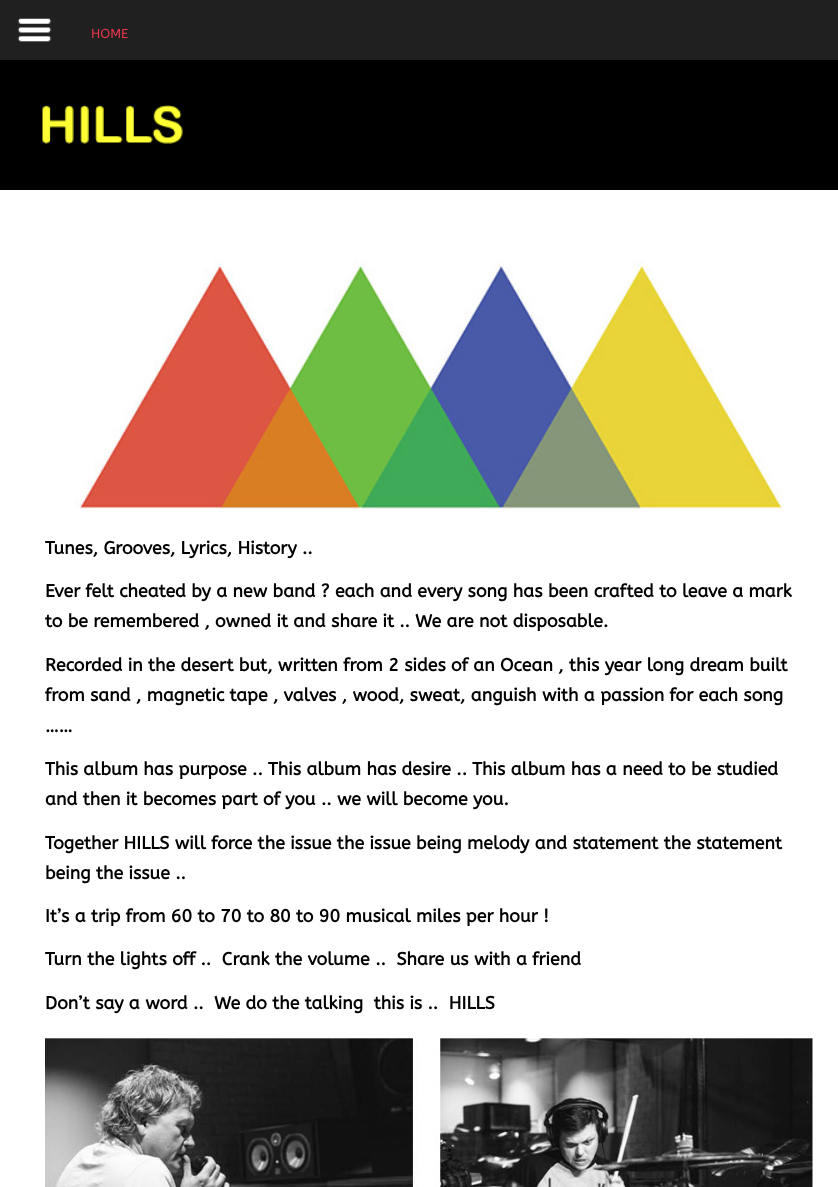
async function draw(canvas) {
  canvas.width = 838;
  canvas.height = 1187;
  const ctx = canvas.getContext('2d');
  ctx.miterLimit = 4;
  ctx.fontKerning = 'normal';
  function label(s, x, y, font, color) {
    ctx.font = font;
    ctx.fillStyle = color;
    ctx.fillText(s, x, y);
  }
  function rect(x, y, w, h, color) {
    ctx.fillStyle = color;
    ctx.fillRect(x, y, w, h);
  }
  async function image(src, x, y, w, h) {
    const img = new Image();
    img.src = src;
    await img.decode();
    ctx.drawImage(img, x, y, w, h);
  }

  rect(0, 0, 838, 1187, '#000');
  rect(0, 0, 838, 60, '#202020');
  await image('assets/img1.png', 17, 18, 35, 24);
  label('HOME', 91, 38, '13px ABeeZee', '#e8374d');
  await image('assets/img2.png', 42, 105, 141, 39);
  rect(0, 190, 838, 997, '#fff');
  await image('assets/img3.png', 74, 259, 710, 250);
  label('Tunes, Grooves, Lyrics, History ..', 45, 554, 'bold 17.8px ABeeZee', '#000');
  label('Ever felt cheated by a new band ? each and every song has been crafted to leave a mark', 45, 597, 'bold 17.8px ABeeZee', '#000');
  label('to be remembered , owned it and share it .. We are not disposable.', 45, 627, 'bold 17.8px ABeeZee', '#000');
  label('Recorded in the desert but, written from 2 sides of an Ocean , this year long dream built', 45, 671, 'bold 17.8px ABeeZee', '#000');
  label('from sand , magnetic tape , valves , wood, sweat, anguish with a passion for each song', 45, 701, 'bold 17.8px ABeeZee', '#000');
  label('……', 45, 732, 'bold 17.8px ABeeZee', '#000');
  label('This album has purpose .. This album has desire .. This album has a need to be studied', 45, 775, 'bold 17.8px ABeeZee', '#000');
  label('and then it becomes part of you .. we will become you.', 45, 805, 'bold 17.8px ABeeZee', '#000');
  label('Together HILLS will force the issue the issue being melody and statement the statement', 45, 849, 'bold 17.8px ABeeZee', '#000');
  label('being the issue ..', 45, 879, 'bold 17.8px ABeeZee', '#000');
  label('It’s a trip from 60 to 70 to 80 to 90 musical miles per hour !', 45, 922, 'bold 17.8px ABeeZee', '#000');
  label('Turn the lights off ..  Crank the volume ..  Share us with a friend', 45, 965, 'bold 17.8px ABeeZee', '#000');
  label('Don’t say a word ..  We do the talking  this is ..  HILLS', 45, 1009, 'bold 17.8px ABeeZee', '#000');
  await image('assets/img4.png', 45, 1038, 768, 149);
}

draw(document.querySelector('canvas'));
